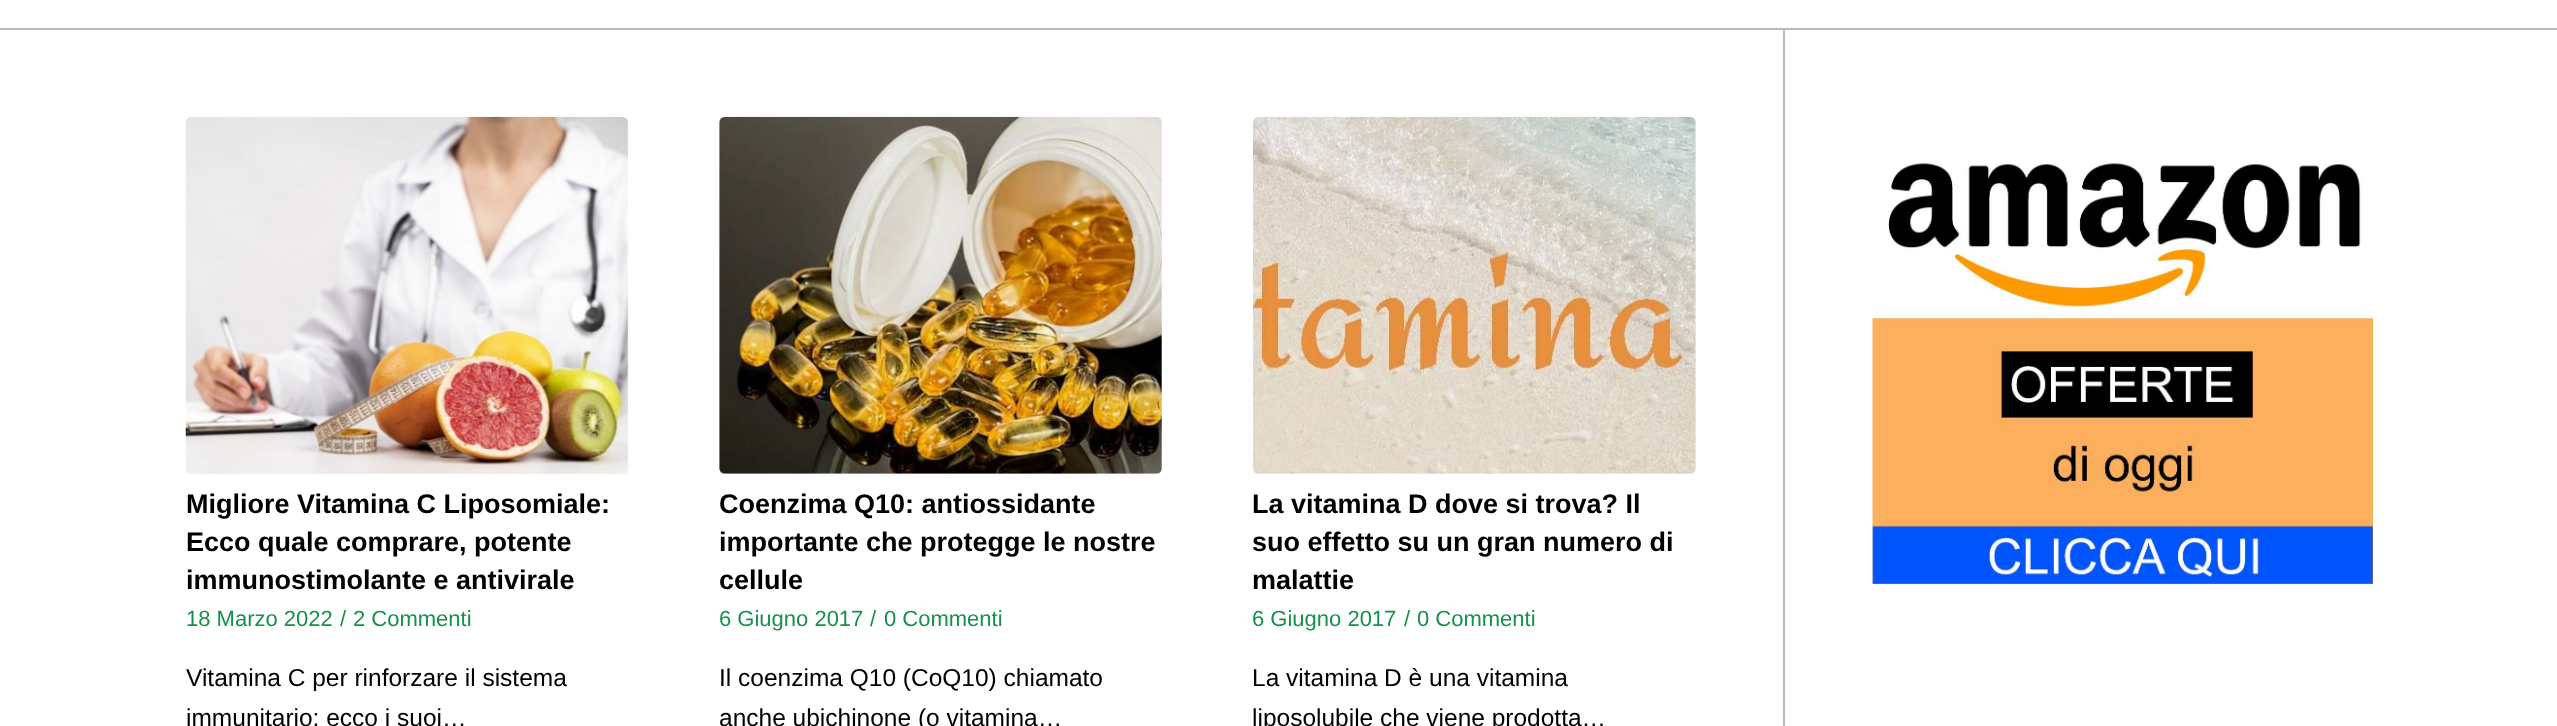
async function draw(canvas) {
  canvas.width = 2557;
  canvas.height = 726;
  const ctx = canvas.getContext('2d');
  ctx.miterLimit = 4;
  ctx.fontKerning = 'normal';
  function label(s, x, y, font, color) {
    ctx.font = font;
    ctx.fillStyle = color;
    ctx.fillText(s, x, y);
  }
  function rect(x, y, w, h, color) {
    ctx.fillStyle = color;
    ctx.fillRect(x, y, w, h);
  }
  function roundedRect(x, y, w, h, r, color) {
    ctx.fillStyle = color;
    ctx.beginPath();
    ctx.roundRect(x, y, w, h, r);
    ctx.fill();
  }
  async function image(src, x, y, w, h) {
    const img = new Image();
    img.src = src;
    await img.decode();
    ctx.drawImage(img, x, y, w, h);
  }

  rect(0, 0, 2557, 726, '#fff');
  rect(0, 28, 2557, 2, '#bababa');
  await image('assets/img1.png', 1872, 163, 501, 421);
  rect(1783, 30, 2, 696, '#bababa');
  roundedRect(186, 117, 442, 357, 5, '#e7f5ed');
  await image('assets/img2.png', 185, 116, 444, 358);
  label('Migliore Vitamina C Liposomiale:', 186, 513, 'bold 27px Liberation Sans', '#000');
  label('Ecco quale comprare, potente', 186, 551, 'bold 27px Liberation Sans', '#000');
  label('immunostimolante e antivirale', 186, 589, 'bold 27px Liberation Sans', '#000');
  label('18 Marzo 2022', 186, 626, '22px Liberation Sans', '#14914a');
  label('/', 340, 626, '22px Liberation Sans', '#14914a');
  label('2 Commenti', 353, 626, '22px Liberation Sans', '#14914a');
  label('Vitamina C per rinforzare il sistema', 186, 686, '24.5px Liberation Sans', '#000');
  label('immunitario: ecco i suoi…', 186, 726, '24.5px Liberation Sans', '#000');
  roundedRect(719, 117, 443, 357, 5, '#e7f5ed');
  await image('assets/img3.png', 719, 116, 443, 358);
  label('Coenzima Q10: antiossidante', 719, 513, 'bold 27px Liberation Sans', '#000');
  label('importante che protegge le nostre', 719, 551, 'bold 27px Liberation Sans', '#000');
  label('cellule', 719, 589, 'bold 27px Liberation Sans', '#000');
  label('6 Giugno 2017', 719, 626, '22px Liberation Sans', '#14914a');
  label('/', 870, 626, '22px Liberation Sans', '#14914a');
  label('0 Commenti', 884, 626, '22px Liberation Sans', '#14914a');
  label('Il coenzima Q10 (CoQ10) chiamato', 719, 686, '24.5px Liberation Sans', '#000');
  label('anche ubichinone (o vitamina…', 719, 726, '24.5px Liberation Sans', '#000');
  roundedRect(1253, 117, 443, 357, 5, '#e7f5ed');
  await image('assets/img4.png', 1253, 116, 443, 358);
  label('La vitamina D dove si trova? Il', 1252, 513, 'bold 27px Liberation Sans', '#000');
  label('suo effetto su un gran numero di', 1252, 551, 'bold 27px Liberation Sans', '#000');
  label('malattie', 1252, 589, 'bold 27px Liberation Sans', '#000');
  label('6 Giugno 2017', 1252, 626, '22px Liberation Sans', '#14914a');
  label('/', 1404, 626, '22px Liberation Sans', '#14914a');
  label('0 Commenti', 1417, 626, '22px Liberation Sans', '#14914a');
  label('La vitamina D è una vitamina', 1252, 686, '24.5px Liberation Sans', '#000');
  label('liposolubile che viene prodotta…', 1252, 726, '24.5px Liberation Sans', '#000');
}

draw(document.querySelector('canvas'));
